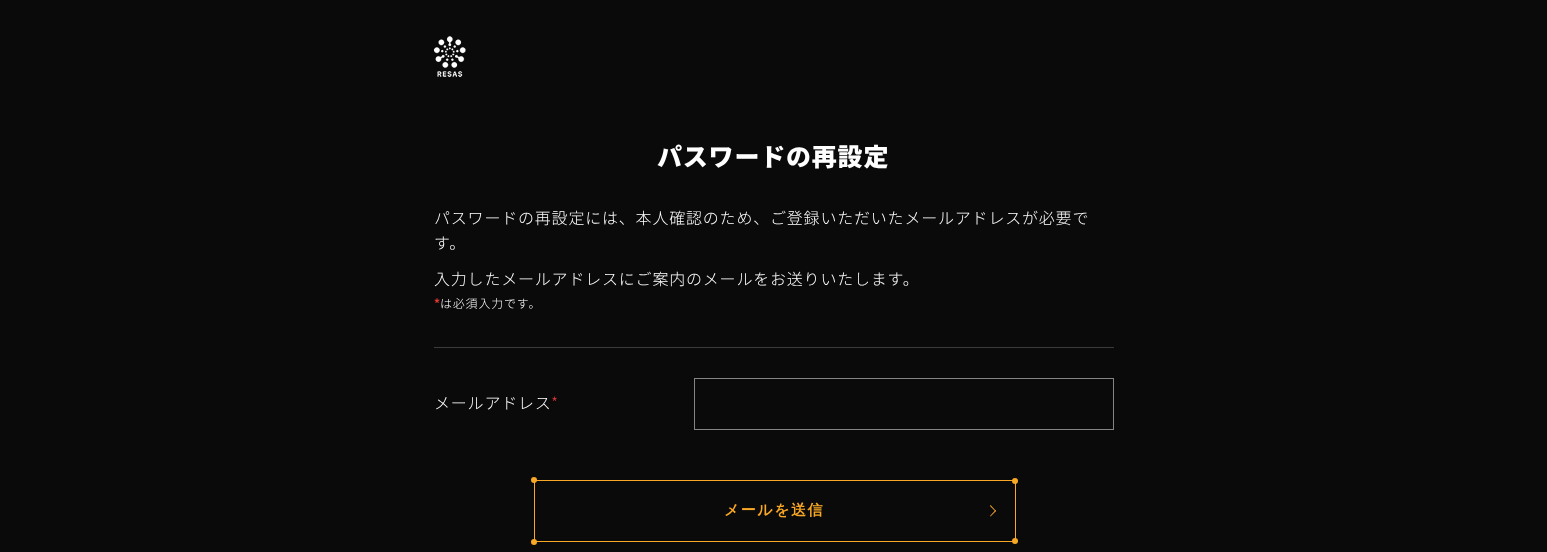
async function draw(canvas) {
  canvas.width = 1547;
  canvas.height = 552;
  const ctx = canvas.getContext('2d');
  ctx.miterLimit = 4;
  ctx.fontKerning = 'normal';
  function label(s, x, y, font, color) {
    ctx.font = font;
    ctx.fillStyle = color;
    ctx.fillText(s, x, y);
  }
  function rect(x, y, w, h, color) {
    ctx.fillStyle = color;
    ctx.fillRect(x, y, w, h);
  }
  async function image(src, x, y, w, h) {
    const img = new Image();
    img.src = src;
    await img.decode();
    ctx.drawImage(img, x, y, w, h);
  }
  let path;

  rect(0, 0, 1547, 552, '#0a0a0a');
  await image('assets/img1.png', 434, 36, 32, 41);
  ctx.letterSpacing = '0.8px';
  label('パスワードの再設定', 657, 166, '900 25px Noto Sans JP', '#fff');
  label('パスワードの再設定には、本人確認のため、ご登録いただいたメールアドレスが必要で', 434, 224, '300 16px Noto Sans JP', '#fff');
  label('す。', 434, 249, '300 16px Noto Sans JP', '#fff');
  label('入力したメールアドレスにご案内のメールをお送りいたします。', 434, 285, '300 16px Noto Sans JP', '#fff');
  label('*', 434, 308, 'bold 12px Noto Sans JP', '#e53935');
  label('は必須入力です。', 440, 308, '300 12px Noto Sans JP', '#fff');
  rect(434, 347, 680, 1, '#3b3b3b');
  label('メールアドレス', 434, 409, '300 16px Noto Sans JP', '#fff');
  label('*', 551, 409, '300 16px Noto Sans JP', '#e53935');
  ctx.strokeStyle = '#858585';
  ctx.strokeRect(694.5, 378.5, 419, 51);
  ctx.strokeStyle = '#f9a825';
  ctx.strokeRect(534.5, 480.5, 481, 61);
  ctx.fillStyle = '#f9a825';
  ctx.beginPath();
  ctx.arc(534, 480, 3, 0, 2 * Math.PI);
  ctx.fill();
  ctx.beginPath();
  ctx.arc(1015, 481, 3, 0, 2 * Math.PI);
  ctx.fill();
  ctx.letterSpacing = '1.5px';
  label('メールを送信', 724, 515, 'bold 15px WenQuanYi Zen Hei', '#f9a825');
  path = new Path2D('M990 506L990.5 505L996 511L995.5 511.5Z');
  ctx.fill(path);
  path = new Path2D('M990 516L995.5 510L996 511L990.5 516.5Z');
  ctx.fill(path);
  ctx.beginPath();
  ctx.arc(1015, 541, 3, 0, 2 * Math.PI);
  ctx.fill();
  ctx.beginPath();
  ctx.arc(534, 542, 3, 0, 2 * Math.PI);
  ctx.fill();
}

draw(document.querySelector('canvas'));
